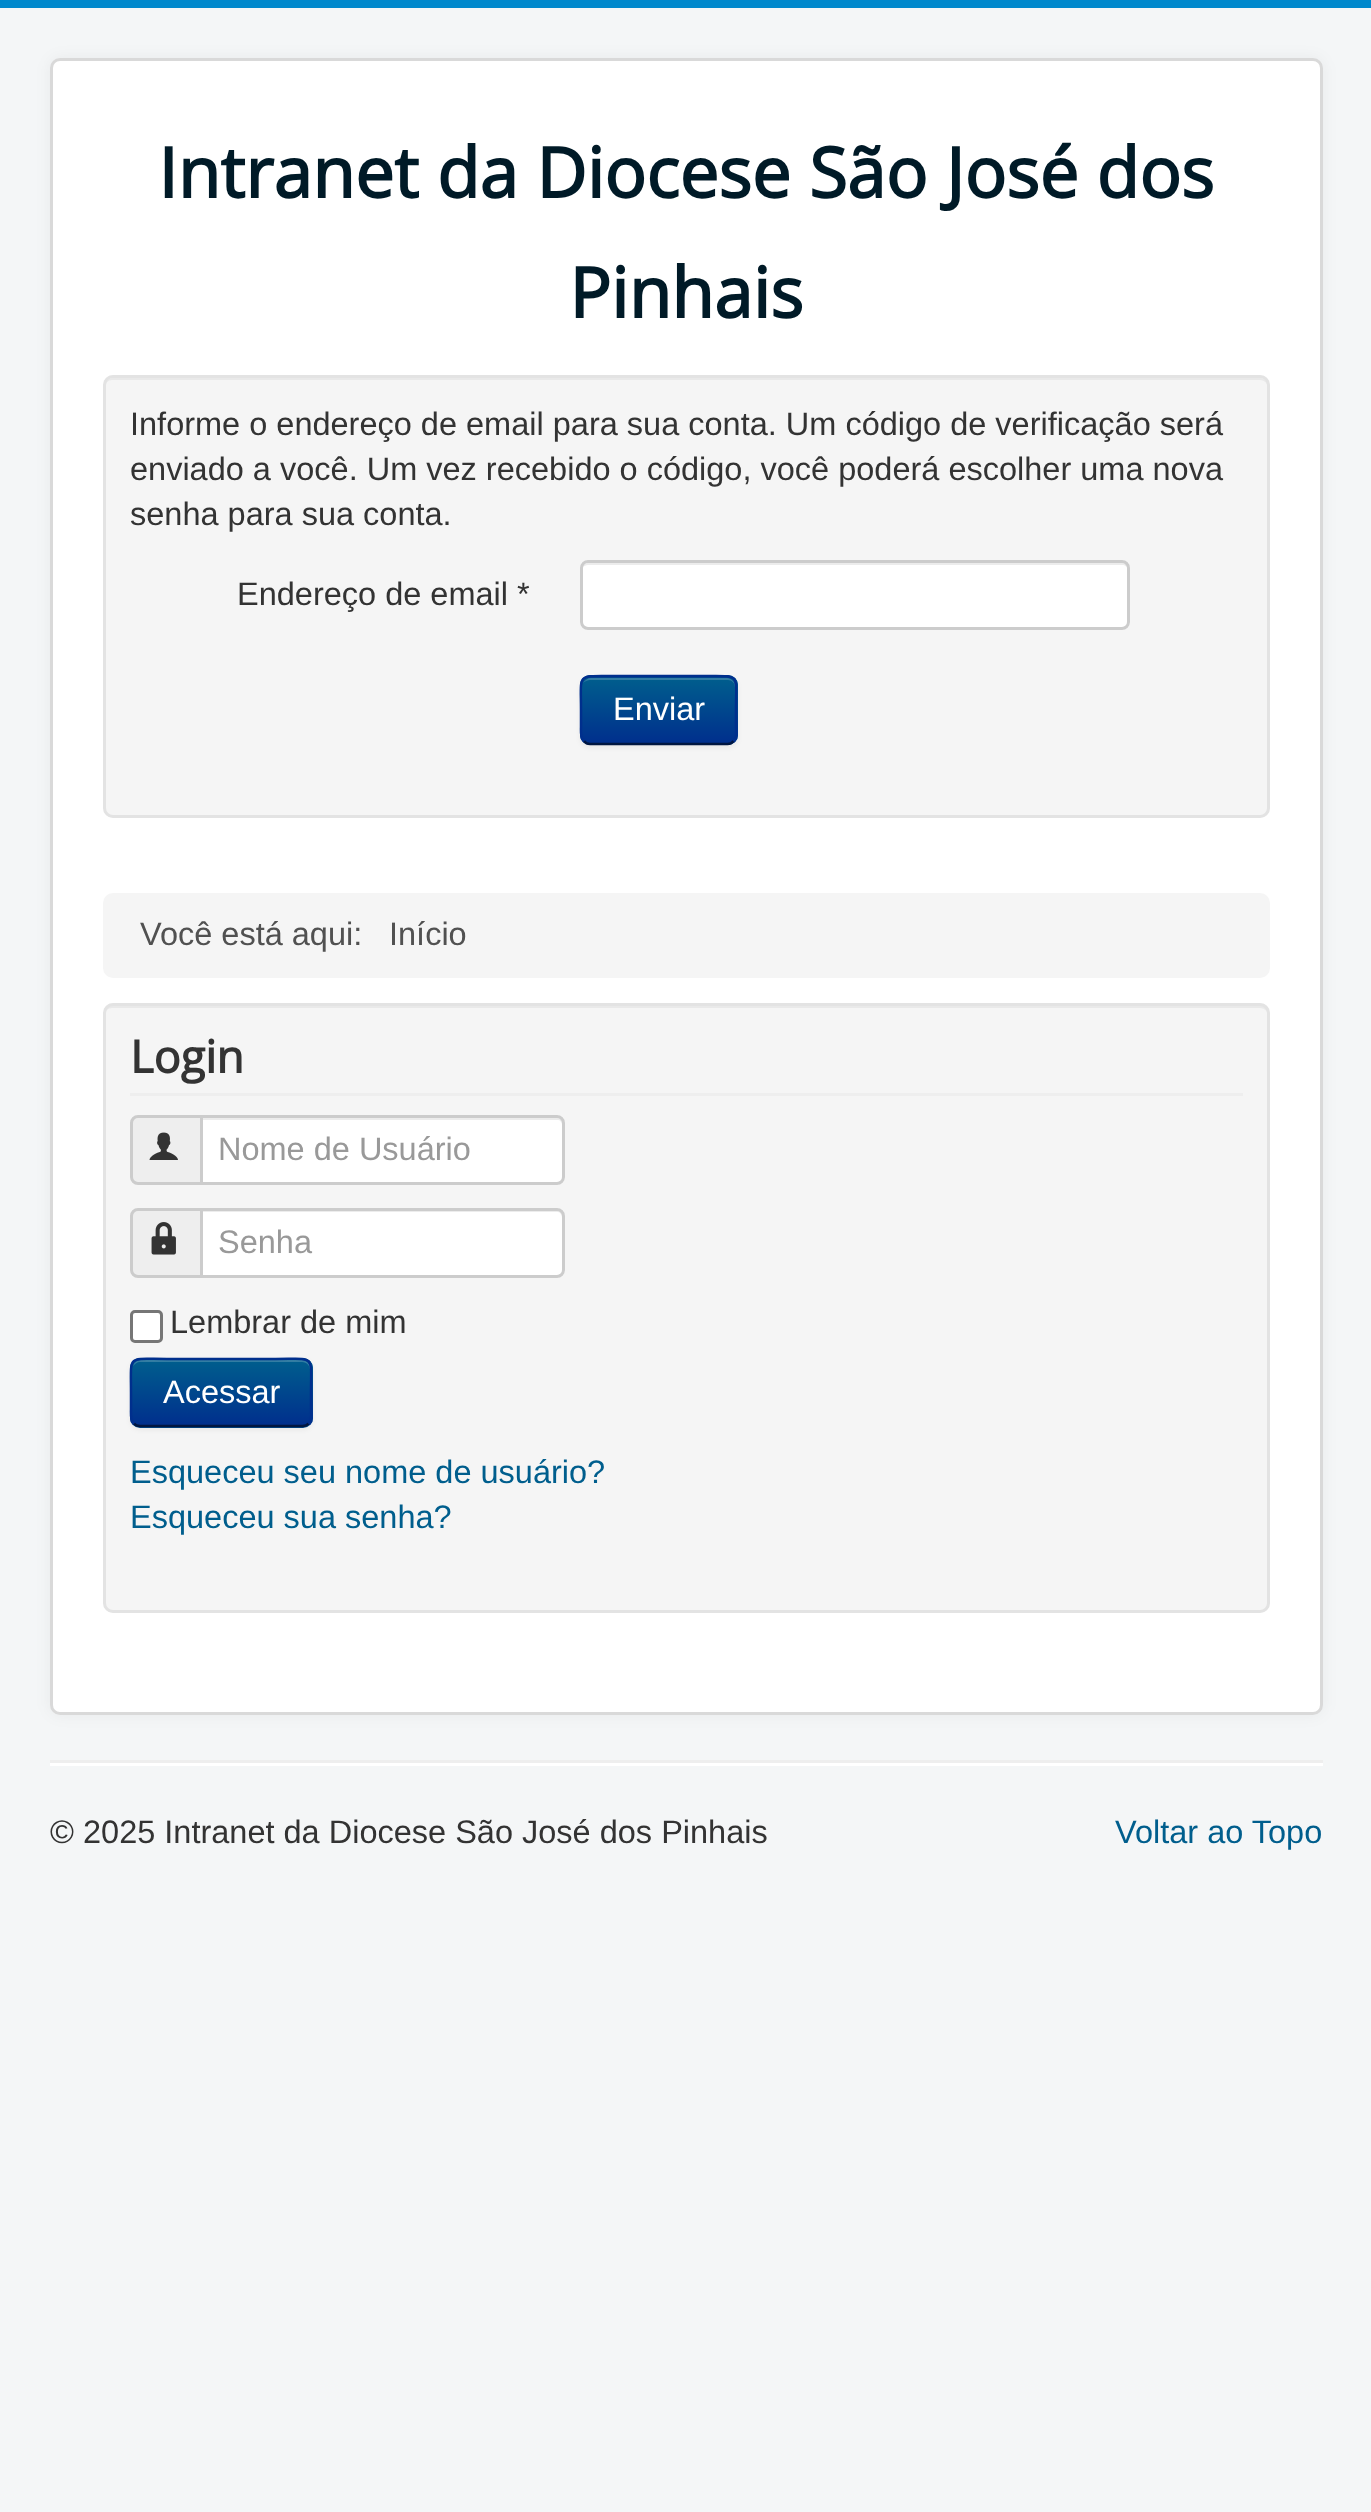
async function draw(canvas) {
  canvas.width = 1371;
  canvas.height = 2512;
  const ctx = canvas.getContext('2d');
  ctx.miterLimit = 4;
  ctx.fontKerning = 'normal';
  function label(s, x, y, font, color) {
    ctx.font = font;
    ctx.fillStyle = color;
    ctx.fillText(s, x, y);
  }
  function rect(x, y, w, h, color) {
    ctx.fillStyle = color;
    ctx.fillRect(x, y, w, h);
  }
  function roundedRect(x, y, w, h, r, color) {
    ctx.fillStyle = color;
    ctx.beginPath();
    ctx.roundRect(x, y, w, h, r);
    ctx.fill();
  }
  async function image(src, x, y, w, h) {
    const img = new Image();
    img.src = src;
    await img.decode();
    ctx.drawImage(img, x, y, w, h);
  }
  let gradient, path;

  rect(0, 0, 1371, 2512, '#f4f6f7');
  rect(0, 0, 1371, 8, '#08c');
  ctx.fillStyle = '#0000000d';
  ctx.filter = 'blur(7.5px)';
  ctx.beginPath();
  ctx.roundRect(50, 58, 1273, 1657, 10);
  ctx.fill();
  ctx.filter = 'none';
  roundedRect(50, 58, 1273, 1657, 10, '#fff');
  ctx.beginPath();
  ctx.roundRect(51.5, 59.5, 1270, 1654, 8.5);
  ctx.strokeStyle = '#00000026';
  ctx.lineWidth = 3;
  ctx.stroke();
  label('Intranet da Diocese São José dos', 158, 198, 'bold 69.6px Open Sans', '#001a27');
  label('Pinhais', 569, 318, 'bold 69.6px Open Sans', '#001a27');
  roundedRect(103, 375, 1167, 443, 10, '#f5f5f5');
  ctx.fillStyle = '#e9e9e9';
  path = new Path2D('M112 380H1260C1264 380 1268 383 1268 388V386C1268 382 1264 378 1260 378H113C109 378 105 382 105 386V388C105 383 108 380 112 380Z');
  ctx.fill(path);
  ctx.beginPath();
  ctx.roundRect(104.5, 376.5, 1164, 440, 8.5);
  ctx.strokeStyle = '#e3e3e3';
  ctx.stroke();
  label('Informe o endereço de email para sua conta. Um código de verificação será', 130, 435, '32.5px Liberation Sans', '#333');
  label('enviado a você. Um vez recebido o código, você poderá escolher uma nova', 130, 480, '32.5px Liberation Sans', '#333');
  label('senha para sua conta.', 130, 525, '32.5px Liberation Sans', '#333');
  label('Endereço de email *', 237, 605, '32.5px Liberation Sans', '#333');
  roundedRect(580, 560, 550, 70, 8, '#fff');
  ctx.fillStyle = '#ececec';
  path = new Path2D('M588 565H1122C1125 565 1128 567 1128 570V568C1128 565 1126 563 1123 563H588C586 563 583 565 583 567C584 566 586 565 588 565Z');
  ctx.fill(path);
  ctx.beginPath();
  ctx.roundRect(581.5, 561.5, 547, 67, 6.5);
  ctx.strokeStyle = '#ccc';
  ctx.stroke();
  ctx.fillStyle = '#0000000d';
  ctx.filter = 'blur(2.5px)';
  ctx.beginPath();
  ctx.roundRect(580, 678, 158, 70, 10);
  ctx.fill();
  ctx.filter = 'none';
  roundedRect(580, 675, 158, 70, 10, '#004b8d');
  ctx.save();
  ctx.beginPath();
  ctx.roundRect(580, 675, 158, 70, 10);
  ctx.clip();
  gradient = ctx.createLinearGradient(659, 678, 659, 743);
  gradient.addColorStop(0, '#005e8d');
  gradient.addColorStop(1, '#002f8d');
  ctx.fillStyle = gradient;
  ctx.fillRect(580, 678, 158, 65);
  ctx.restore();
  ctx.fillStyle = '#ffffff33';
  path = new Path2D('M590 680H728C732 680 735 683 735 688V686C735 682 731 678 727 678H591C588 678 585 680 583 683C585 681 588 680 590 680Z');
  ctx.fill(path);
  path = new Path2D('M733.5 741C732 743 730 744 727.5 744H590C587.5 744 585.5 743 584 741');
  ctx.strokeStyle = '#001641';
  ctx.lineWidth = 2.5;
  ctx.stroke(path);
  path = new Path2D('M584 741C580 737.5 581 731.5 581 726.5V710C581 673 576 676 613 676H704.5C741.5 676 736 673 736 710V726.5C736 731.5 737.5 737.5 733.5 741');
  ctx.strokeStyle = '#002f8d';
  ctx.stroke(path);
  label('Enviar', 613, 720, '32.5px Liberation Sans', '#fff');
  roundedRect(103, 893, 1167, 85, 10, '#f5f5f5');
  label('Você está aqui:', 140, 945, '32.5px Liberation Sans', '#515151');
  label('Início', 389, 945, '32.5px Liberation Sans', '#515151');
  roundedRect(103, 1003, 1167, 610, 10, '#f5f5f5');
  ctx.fillStyle = '#e9e9e9';
  path = new Path2D('M112 1008H1260C1264 1008 1268 1011 1268 1015V1013C1268 1009 1264 1005 1260 1005H113C109 1005 105 1009 105 1013V1015C105 1011 108 1008 112 1008Z');
  ctx.fill(path);
  ctx.beginPath();
  ctx.roundRect(104.5, 1004.5, 1164, 607, 8.5);
  ctx.strokeStyle = '#e3e3e3';
  ctx.lineWidth = 3;
  ctx.stroke();
  rect(130, 1093, 1113, 3, '#eee');
  label('Login', 130, 1073, 'bold 45px Open Sans', '#333');
  ctx.fillStyle = '#eee';
  ctx.beginPath();
  ctx.roundRect(131.5, 1116.5, 70, 67, [6.5, 0, 0, 6.5]);
  ctx.fill();
  ctx.strokeStyle = '#ccc';
  ctx.stroke();
  await image('assets/img1.png', 149, 1132, 29, 28);
  ctx.fillStyle = '#fff';
  ctx.beginPath();
  ctx.roundRect(200, 1115, 365, 70, [0, 8, 8, 0]);
  ctx.fill();
  ctx.fillStyle = '#ececec';
  path = new Path2D('M203 1118V1120H558C560 1120 562 1122 562 1125V1181C563 1180 563 1179 563 1178V1123C563 1120 561 1118 558 1118Z');
  ctx.fill(path);
  ctx.beginPath();
  ctx.roundRect(201.5, 1116.5, 362, 67, [0, 6.5, 6.5, 0]);
  ctx.stroke();
  label('Nome de Usuário', 218, 1160, '32.5px Liberation Sans', '#999');
  ctx.fillStyle = '#eee';
  ctx.beginPath();
  ctx.roundRect(131.5, 1209.5, 70, 67, [6.5, 0, 0, 6.5]);
  ctx.fill();
  ctx.stroke();
  await image('assets/img2.png', 151, 1222, 25, 33);
  ctx.fillStyle = '#fff';
  ctx.beginPath();
  ctx.roundRect(200, 1208, 365, 70, [0, 8, 8, 0]);
  ctx.fill();
  ctx.fillStyle = '#ececec';
  path = new Path2D('M203 1210V1212H558C560 1212 562 1215 562 1218V1273C563 1272 563 1271 563 1270V1215C563 1212 561 1210 558 1210Z');
  ctx.fill(path);
  ctx.beginPath();
  ctx.roundRect(201.5, 1209.5, 362, 67, [0, 6.5, 6.5, 0]);
  ctx.stroke();
  label('Senha', 218, 1253, '32.5px Liberation Sans', '#999');
  ctx.fillStyle = '#fff';
  ctx.beginPath();
  ctx.roundRect(131.5, 1311.5, 30, 30, 3.5);
  ctx.fill();
  ctx.strokeStyle = '#767676';
  ctx.stroke();
  label('Lembrar de mim', 170, 1333, '32.5px Liberation Sans', '#333');
  ctx.fillStyle = '#0000000d';
  ctx.filter = 'blur(2.5px)';
  ctx.beginPath();
  ctx.roundRect(130, 1360, 183, 70, 10);
  ctx.fill();
  ctx.filter = 'none';
  roundedRect(130, 1358, 183, 70, 10, '#004b8d');
  ctx.save();
  ctx.beginPath();
  ctx.roundRect(130, 1358, 183, 70, 10);
  ctx.clip();
  gradient = ctx.createLinearGradient(221, 1360, 221, 1425);
  gradient.addColorStop(0, '#005e8d');
  gradient.addColorStop(1, '#002f8d');
  ctx.fillStyle = gradient;
  ctx.fillRect(130, 1360, 183, 65);
  ctx.restore();
  ctx.fillStyle = '#ffffff33';
  path = new Path2D('M140 1362H302C307 1362 310 1366 310 1370V1368C310 1364 306 1360 302 1360H141C137 1360 134 1363 133 1366C135 1364 137 1362 140 1362Z');
  ctx.fill(path);
  path = new Path2D('M308.5 1423.5C307 1425.5 305 1426 302.5 1426H140C137.5 1426 135.5 1425.5 134 1423.5');
  ctx.strokeStyle = '#001641';
  ctx.lineWidth = 2.5;
  ctx.stroke(path);
  path = new Path2D('M134 1423.5C130 1420 131 1414 131 1409V1392.5C131 1353.5 126.5 1359 167 1359H275.5C316 1359 311 1353.5 311 1392.5V1409C311 1414 312.5 1420 308.5 1423.5');
  ctx.strokeStyle = '#002f8d';
  ctx.stroke(path);
  label('Acessar', 163, 1403, '32.5px Liberation Sans', '#fff');
  label('Esqueceu seu nome de usuário?', 130, 1483, '32.5px Liberation Sans', '#005e8d');
  label('Esqueceu sua senha?', 130, 1528, '32.5px Liberation Sans', '#005e8d');
  rect(50, 1760, 1273, 3, '#eee');
  rect(50, 1763, 1273, 3, '#fff');
  label('© 2025 Intranet da Diocese São José dos Pinhais', 50, 1843, '32.5px Liberation Sans', '#333');
  label('Voltar ao Topo', 1115, 1843, '32.5px Liberation Sans', '#005e8d');
}

draw(document.querySelector('canvas'));
